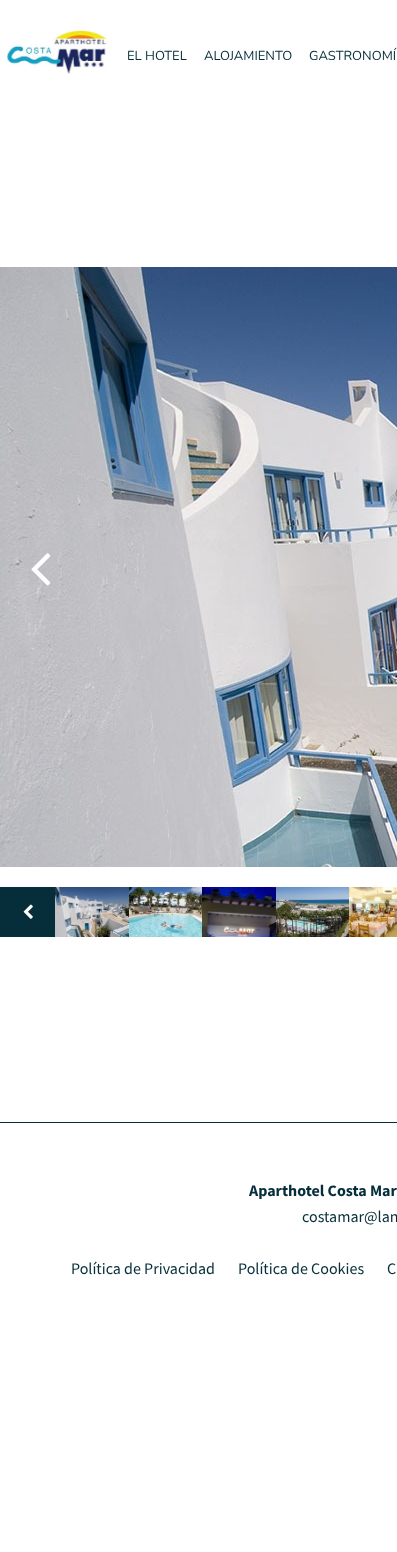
async function draw(canvas) {
  canvas.width = 397;
  canvas.height = 1552;
  const ctx = canvas.getContext('2d');
  ctx.miterLimit = 4;
  ctx.fontKerning = 'normal';
  function label(s, x, y, font, color) {
    ctx.font = font;
    ctx.fillStyle = color;
    ctx.fillText(s, x, y);
  }
  function rect(x, y, w, h, color) {
    ctx.fillStyle = color;
    ctx.fillRect(x, y, w, h);
  }
  async function image(src, x, y, w, h) {
    const img = new Image();
    img.src = src;
    await img.decode();
    ctx.drawImage(img, x, y, w, h);
  }

  rect(0, 0, 397, 1552, '#fff');
  await image('assets/img1.png', 6, 30, 101, 44);
  label('EL HOTEL', 127, 60, '13px Nunito', '#062e3a');
  label('ALOJAMIENTO', 204, 60, '13px Nunito', '#062e3a');
  label('GASTRONOMÍ', 309, 60, '13px Nunito', '#062e3a');
  await image('assets/img2.png', 0, 267, 397, 600);
  await image('assets/img3.png', 31, 553, 20, 33);
  rect(0, 887, 55, 50, '#062e3a');
  await image('assets/img4.png', 23, 904, 10, 15);
  await image('assets/img5.png', 55, 887, 74, 50);
  await image('assets/img6.png', 129, 887, 73, 50);
  await image('assets/img7.png', 202, 887, 74, 50);
  await image('assets/img8.png', 276, 887, 73, 50);
  await image('assets/img9.png', 349, 887, 48, 50);
  rect(0, 1122, 397, 1, '#062e3a');
  label('Aparthotel Costa Mar', 249, 1196, 'bold 16px Source Sans Pro', '#062e3a');
  label('costamar@lan', 302, 1222, '16px Source Sans Pro', '#062e3a');
  label('Política de Privacidad', 71, 1274, '16px Source Sans Pro', '#062e3a');
  label('Política de Cookies', 238, 1274, '16px Source Sans Pro', '#062e3a');
  label('C', 387, 1274, '16px Source Sans Pro', '#062e3a');
}

draw(document.querySelector('canvas'));
